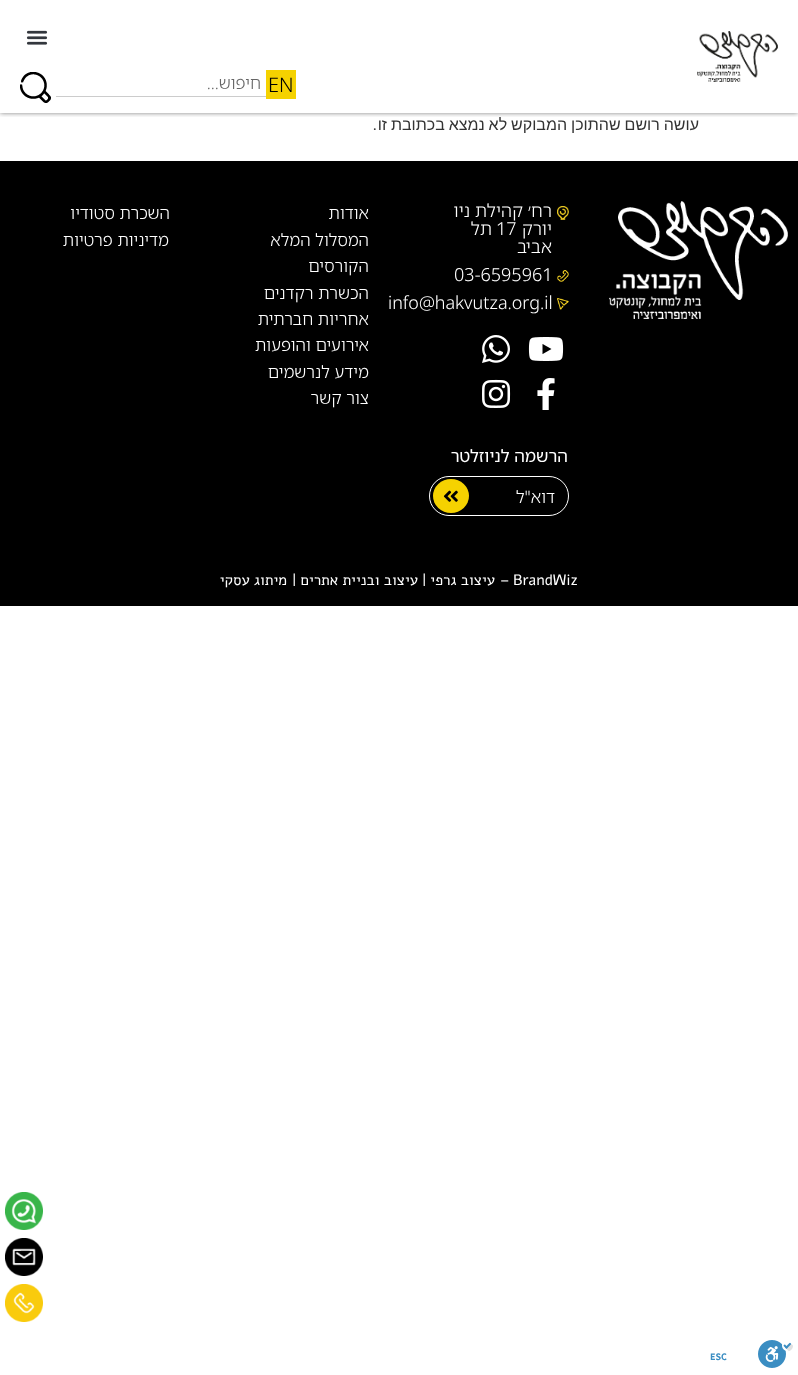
async function draw(canvas) {
  canvas.width = 798;
  canvas.height = 1375;
  const ctx = canvas.getContext('2d');
  ctx.miterLimit = 4;
  ctx.fontKerning = 'normal';
  function label(s, x, y, font, color) {
    ctx.font = font;
    ctx.fillStyle = color;
    ctx.fillText(s, x, y);
  }
  function rect(x, y, w, h, color) {
    ctx.fillStyle = color;
    ctx.fillRect(x, y, w, h);
  }
  async function image(src, x, y, w, h) {
    const img = new Image();
    img.src = src;
    await img.decode();
    ctx.drawImage(img, x, y, w, h);
  }

  rect(0, 0, 798, 1375, '#fff');
  ctx.save();
  ctx.beginPath();
  ctx.rect(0, 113, 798, 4);
  ctx.clip();
  ctx.fillStyle = '#00000080';
  ctx.filter = 'blur(2.5px)';
  ctx.beginPath();
  ctx.rect(0, 0, 798, 113);
  ctx.fill();
  ctx.filter = 'none';
  ctx.restore();
  await image('assets/img1.png', 697, 31, 81, 51);
  await image('assets/img2.png', 26, 30, 22, 15);
  rect(266, 70, 30, 29, '#f5d200');
  label('EN', 268, 92, '300 20px Noto Sans Hebrew', '#000');
  rect(56, 96, 210, 1, '#ccc');
  ctx.direction = 'rtl';
  label('חיפוש...', 261, 89, '300 17px Noto Sans Hebrew', '#666');
  await image('assets/img3.png', 20, 72, 31, 31);
  await image('assets/img4.png', 5, 1192, 38, 38);
  await image('assets/img5.png', 5, 1238, 38, 38);
  await image('assets/img6.png', 5, 1284, 38, 38);
  ctx.wordSpacing = '-0.5px';
  label('עושה רושם שהתוכן המבוקש לא נמצא בכתובת זו', 699, 130, '16px Liberation Sans', '#333');
  ctx.wordSpacing = '0px';
  label('.', 377, 130, '16px Roboto', '#333');
  rect(0, 161, 798, 445, '#000');
  await image('assets/img7.png', 609, 201, 179, 118);
  await image('assets/img8.png', 557, 206, 12, 14);
  label('רח׳ קהילת ניו', 552, 217, '300 18px Noto Sans Hebrew', '#fff');
  label('יורק', 552, 235, '300 18px Noto Sans Hebrew', '#fff');
  ctx.direction = 'ltr';
  label('17', 496, 235, '300 18px Noto Sans Hebrew', '#fff');
  ctx.direction = 'rtl';
  label('תל', 492, 235, '300 18px Noto Sans Hebrew', '#fff');
  label('אביב', 552, 253, '300 18px Noto Sans Hebrew', '#fff');
  await image('assets/img9.png', 557, 270, 12, 12);
  ctx.direction = 'ltr';
  label('03-6595961', 454, 281, '300 18px Noto Sans Hebrew', '#fff');
  await image('assets/img10.png', 557, 298, 12, 12);
  label('info@hakvutza.org.il', 388, 309, '300 18px Noto Sans Hebrew', '#fff');
  await image('assets/img11.png', 528, 337, 36, 24);
  await image('assets/img12.png', 482, 335, 28, 28);
  await image('assets/img13.png', 537, 378, 18, 32);
  await image('assets/img14.png', 482, 379, 29, 29);
  ctx.direction = 'rtl';
  label('הרשמה לניוזלטר', 568, 462, '17px Noto Sans Hebrew', '#fff');
  ctx.beginPath();
  ctx.roundRect(429.5, 476.5, 139, 39, 19.5);
  ctx.strokeStyle = '#fff';
  ctx.stroke();
  label('דוא"ל', 555, 503, '300 17px Noto Sans Hebrew', '#fff');
  ctx.fillStyle = '#f5d200';
  ctx.beginPath();
  ctx.ellipse(451, 496, 18, 17, 0, 0, 2 * Math.PI);
  ctx.fill();
  await image('assets/img15.png', 443, 490, 15, 12);
  label('אודות', 369, 219, '300 17px Noto Sans Hebrew', '#fff');
  label('המסלול המלא', 369, 246, '300 17px Noto Sans Hebrew', '#fff');
  label('הקורסים', 369, 272, '300 17px Noto Sans Hebrew', '#fff');
  label('הכשרת רקדנים', 369, 299, '300 17px Noto Sans Hebrew', '#fff');
  label('אחריות חברתית', 369, 325, '300 17px Noto Sans Hebrew', '#fff');
  label('אירועים והופעות', 369, 351, '300 17px Noto Sans Hebrew', '#fff');
  label('מידע לנרשמים', 369, 378, '300 17px Noto Sans Hebrew', '#fff');
  label('צור קשר', 369, 404, '300 17px Noto Sans Hebrew', '#fff');
  label('השכרת סטודיו', 170, 219, '300 17px Noto Sans Hebrew', '#fff');
  label('מדיניות פרטיות', 169, 246, '300 17px Noto Sans Hebrew', '#fff');
  ctx.direction = 'ltr';
  label('BrandWiz', 513, 585, '15px Alef', '#fff');
  label('–', 500, 585, '15px Alef', '#fff');
  ctx.direction = 'rtl';
  label('עיצוב גרפי', 495, 585, '15px Alef', '#fff');
  ctx.direction = 'ltr';
  label('|', 422, 585, '15px Alef', '#fff');
  ctx.direction = 'rtl';
  label('עיצוב ובניית אתרים', 418, 585, '15px Alef', '#fff');
  ctx.direction = 'ltr';
  label('|', 292, 585, '15px Alef', '#fff');
  ctx.direction = 'rtl';
  label('מיתוג עסקי', 287, 585, '15px Alef', '#fff');
  await image('assets/img16.png', 758, 1340, 35, 28);
  ctx.direction = 'ltr';
  label('ESC', 710, 1360, 'bold 10px Assistant', '#3a8dc2');
}

draw(document.querySelector('canvas'));
